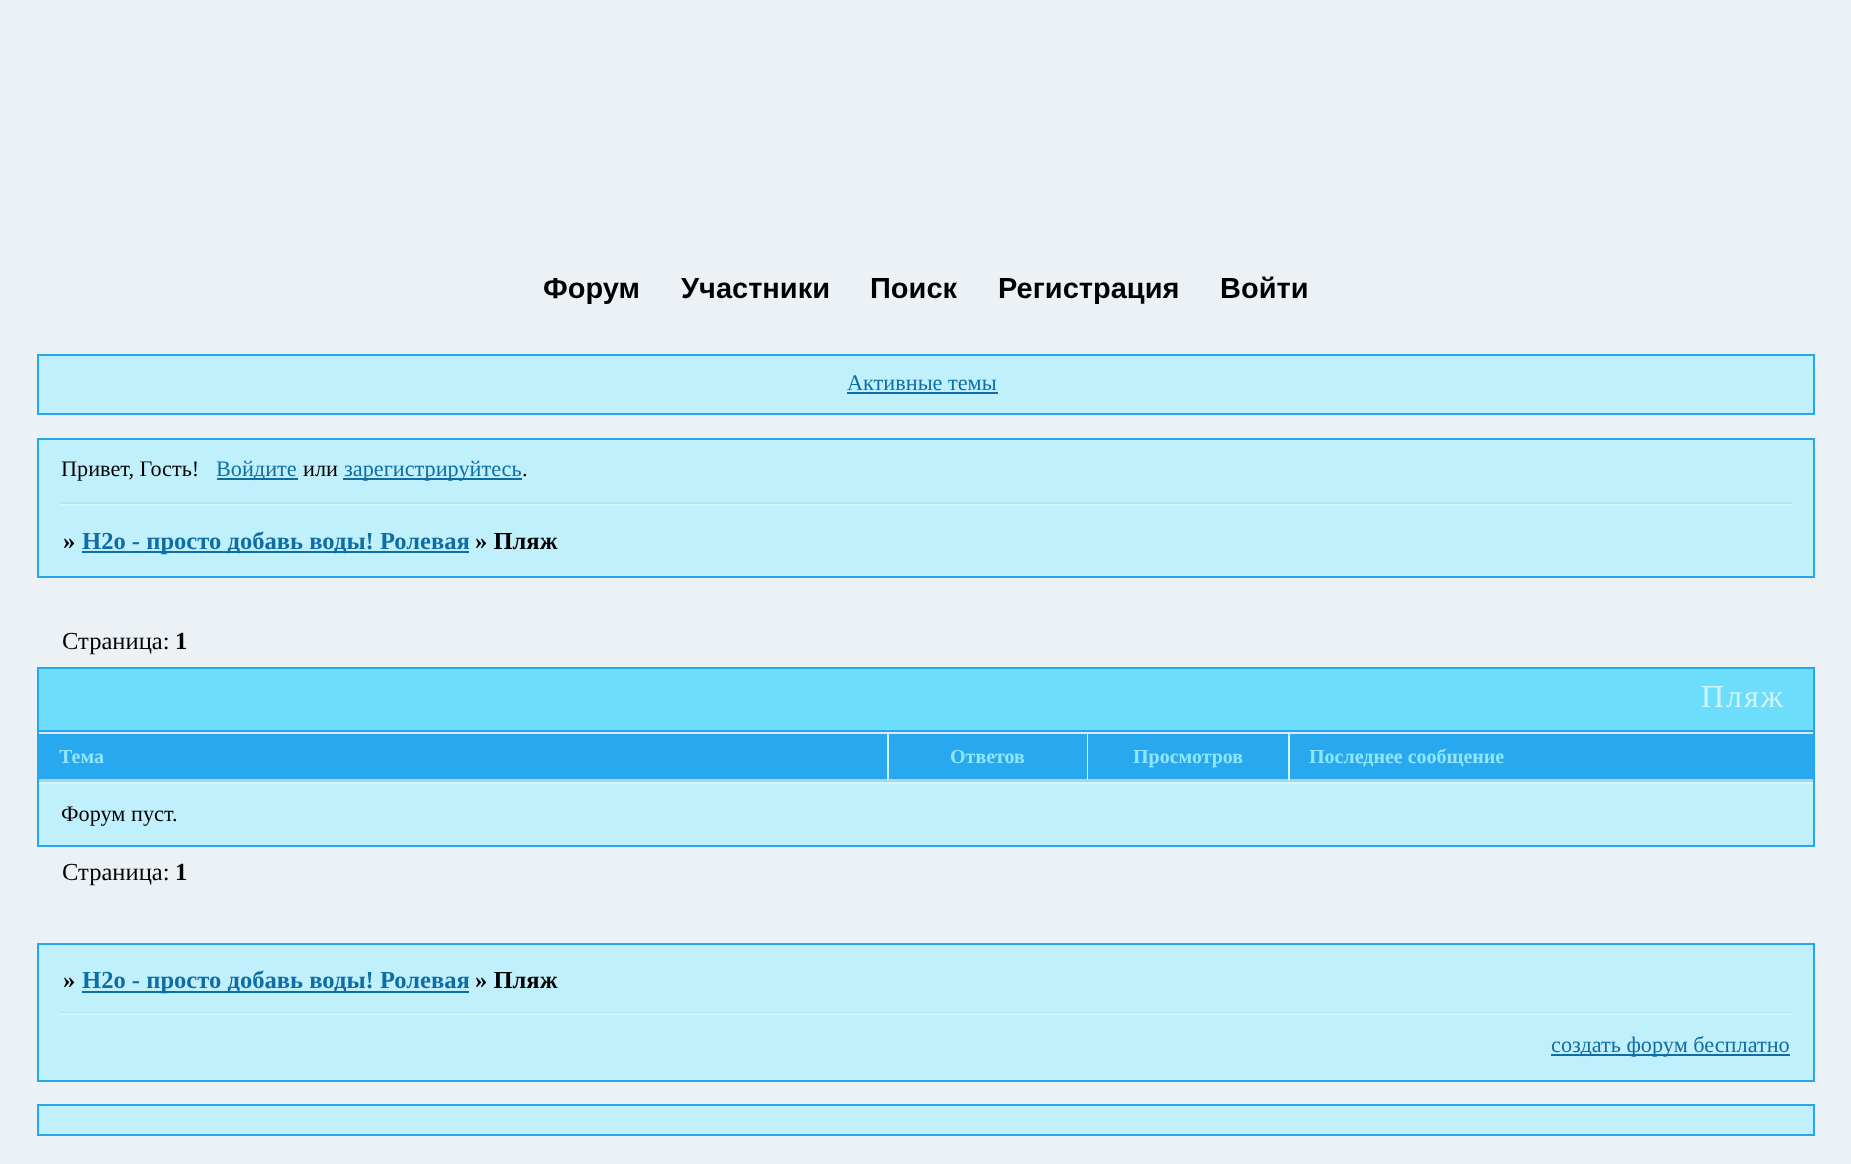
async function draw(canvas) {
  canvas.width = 1851;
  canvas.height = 1164;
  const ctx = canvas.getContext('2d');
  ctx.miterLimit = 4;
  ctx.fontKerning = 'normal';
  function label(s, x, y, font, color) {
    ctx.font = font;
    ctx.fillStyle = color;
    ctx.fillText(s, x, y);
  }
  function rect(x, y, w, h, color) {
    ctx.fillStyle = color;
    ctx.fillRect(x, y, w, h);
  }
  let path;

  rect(0, 0, 1851, 1164, '#ecf1f5');
  label('Форум', 543, 298, 'bold 29px Liberation Sans', '#000');
  label('Участники', 681, 298, 'bold 29px Liberation Sans', '#000');
  label('Поиск', 870, 298, 'bold 29px Liberation Sans', '#000');
  label('Регистрация', 998, 298, 'bold 29px Liberation Sans', '#000');
  label('Войти', 1220, 298, 'bold 29px Liberation Sans', '#000');
  ctx.fillStyle = '#c0f0fc';
  ctx.beginPath();
  ctx.rect(38, 355, 1776, 59);
  ctx.fill();
  ctx.strokeStyle = '#25a7ef';
  ctx.lineWidth = 2;
  ctx.stroke();
  label('Активные темы', 847, 390, '22.25px Liberation Serif', '#0f6da6');
  rect(847, 392, 151, 2, '#0f6da6');
  rect(39, 440, 1774, 136, '#c0f0fc');
  rect(37, 438, 1778, 2, '#25a7ef');
  rect(1813, 438, 2, 140, '#25a7ef');
  rect(37, 438, 2, 68, '#25a7ef');
  label('Привет, Гость!', 61, 476, '22.25px Liberation Serif', '#000');
  rect(217, 478, 81, 2, '#0f6da6');
  label('Войдите', 216, 476, '22.25px Liberation Serif', '#0f6da6');
  label('или', 303, 476, '22.25px Liberation Serif', '#000');
  rect(343, 478, 179, 2, '#0f6da6');
  label('зарегистрируйтесь', 344, 476, '22.25px Liberation Serif', '#0f6da6');
  label('.', 522, 476, '22.25px Liberation Serif', '#000');
  rect(60, 502, 1732, 2, '#b6e4f0');
  rect(60, 504, 1732, 2, '#ccf5ff');
  rect(37, 576, 1778, 2, '#25a7ef');
  rect(37, 502, 2, 76, '#25a7ef');
  label('»', 63, 549, 'bold 24.6px Liberation Serif', '#000');
  rect(82, 551, 387, 2, '#0f6da6');
  label('H2o - просто добавь воды! Ролевая', 82, 549, 'bold 24.6px Liberation Serif', '#0f6da6');
  label('» Пляж', 475, 549, 'bold 24.6px Liberation Serif', '#000');
  label('Страница:', 62, 649, '24.6px Liberation Serif', '#000');
  label('1', 175, 649, 'bold 24.6px Liberation Serif', '#000');
  rect(39, 669, 1774, 61, '#6dddfc');
  rect(37, 667, 1778, 2, '#25a7ef');
  rect(1813, 667, 2, 63, '#25a7ef');
  rect(37, 667, 2, 63, '#25a7ef');
  ctx.letterSpacing = '2px';
  label('Пляж', 1701, 707, '32px Liberation Serif', '#cef4fd');
  rect(39, 784, 1774, 61, '#c0f0fc');
  ctx.strokeRect(38, 731, 1776, 115);
  rect(39, 734, 848, 45, '#28a9ef');
  rect(39, 779, 848, 3, '#abd6e0');
  ctx.letterSpacing = '0px';
  label('Тема', 59, 763, 'bold 20px Liberation Serif', '#8fe7fe');
  rect(887, 734, 926, 48, '#28a9ef');
  rect(39, 732, 1774, 2, '#e5e5e5');
  ctx.fillStyle = '#abd6e0';
  path = new Path2D('M1087 782H887L889 779H1087Z');
  ctx.fill(path);
  ctx.fillStyle = '#d2f4fd';
  path = new Path2D('M887 782V732L889 733V779Z');
  ctx.fill(path);
  label('Ответов', 950, 763, 'bold 20px Liberation Serif', '#8fe7fe');
  ctx.fillStyle = '#abd6e0';
  path = new Path2D('M1288 782H1087L1088 779H1288Z');
  ctx.fill(path);
  ctx.fillStyle = '#d2f4fd';
  path = new Path2D('M1087 782V732L1088 733V779Z');
  ctx.fill(path);
  label('Просмотров', 1133, 763, 'bold 20px Liberation Serif', '#8fe7fe');
  ctx.fillStyle = '#abd6e0';
  path = new Path2D('M1813 782H1288L1290 779H1813Z');
  ctx.fill(path);
  ctx.fillStyle = '#d2f4fd';
  path = new Path2D('M1288 782V732L1290 733V779Z');
  ctx.fill(path);
  label('Последнее сообщение', 1309, 763, 'bold 20px Liberation Serif', '#8fe7fe');
  rect(39, 782, 1774, 2, '#d2f4fd');
  label('Форум пуст.', 61, 821, '22.25px Liberation Serif', '#000');
  label('Страница:', 62, 880, '24.6px Liberation Serif', '#000');
  label('1', 175, 880, 'bold 24.6px Liberation Serif', '#000');
  rect(37, 943, 1778, 2, '#25a7ef');
  rect(1813, 1012, 2, 70, '#25a7ef');
  rect(1813, 943, 2, 72, '#25a7ef');
  rect(37, 1080, 1778, 2, '#25a7ef');
  rect(37, 1012, 2, 70, '#25a7ef');
  rect(37, 943, 2, 72, '#25a7ef');
  rect(39, 945, 1774, 135, '#c0f0fc');
  label('»', 63, 988, 'bold 24.6px Liberation Serif', '#000');
  rect(82, 991, 387, 2, '#0f6da6');
  label('H2o - просто добавь воды! Ролевая', 82, 988, 'bold 24.6px Liberation Serif', '#0f6da6');
  label('» Пляж', 475, 988, 'bold 24.6px Liberation Serif', '#000');
  rect(60, 1012, 1732, 1, '#b6e4f0');
  rect(60, 1013, 1732, 2, '#ccf5ff');
  rect(1551, 1054, 239, 2, '#0f6da6');
  label('создать форум бесплатно', 1551, 1052, '22.25px Liberation Serif', '#0f6da6');
  ctx.fillStyle = '#c0f0fc';
  ctx.beginPath();
  ctx.rect(38, 1105, 1776, 30);
  ctx.fill();
  ctx.stroke();
}

draw(document.querySelector('canvas'));
